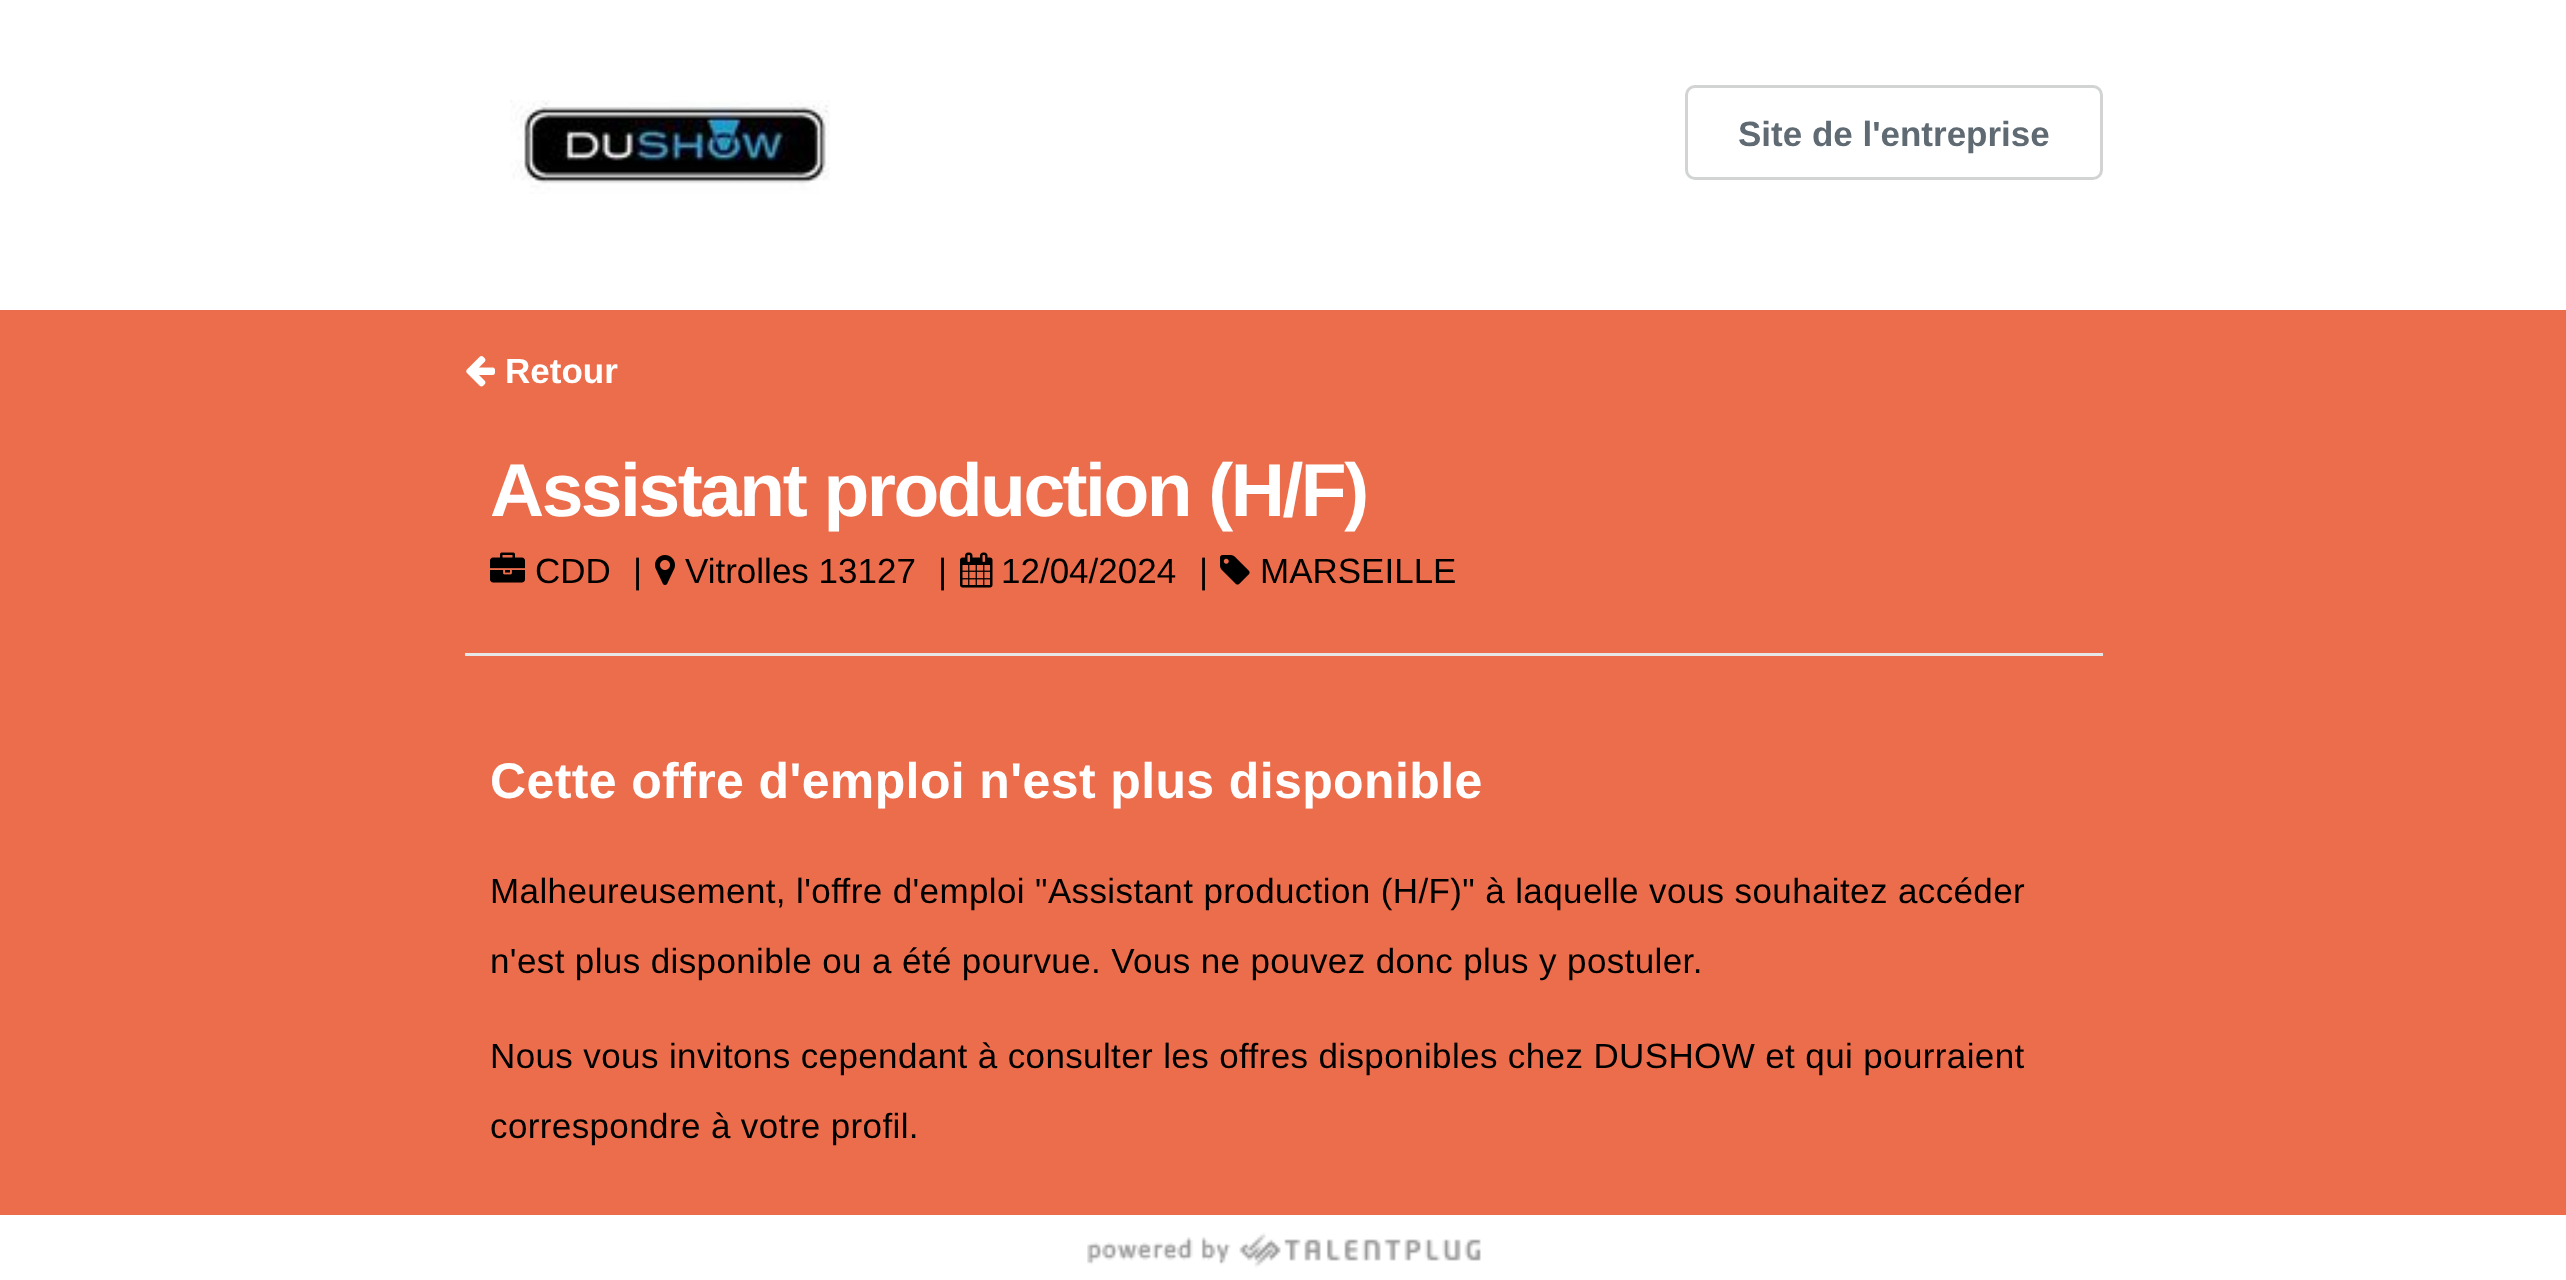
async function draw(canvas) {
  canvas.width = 2566;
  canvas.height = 1280;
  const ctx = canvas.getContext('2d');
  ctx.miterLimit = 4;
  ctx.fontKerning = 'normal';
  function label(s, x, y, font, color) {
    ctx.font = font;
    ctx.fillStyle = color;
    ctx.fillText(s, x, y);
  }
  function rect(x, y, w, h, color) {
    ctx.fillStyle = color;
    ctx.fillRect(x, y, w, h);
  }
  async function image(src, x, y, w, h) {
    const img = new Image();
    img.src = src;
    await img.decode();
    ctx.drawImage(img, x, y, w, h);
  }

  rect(0, 0, 2566, 1280, '#fff');
  await image('assets/img1.png', 510, 100, 320, 94);
  ctx.beginPath();
  ctx.roundRect(1686.5, 86.5, 415, 92, 8.5);
  ctx.strokeStyle = '#d1d4d3';
  ctx.lineWidth = 3;
  ctx.stroke();
  label('Site de l\'entreprise', 1738, 146, 'bold 35px Liberation Sans', '#5f6a72');
  rect(0, 310, 2566, 905, '#ec6d4c');
  await image('assets/img2.png', 466, 356, 29, 31);
  label('Retour', 505, 383, 'bold 35px Liberation Sans', '#fff');
  rect(465, 653, 1638, 3, '#e7e7e7');
  ctx.letterSpacing = '-2.5px';
  label('Assistant production (H/F)', 490, 516, 'bold 75px Liberation Sans', '#fff');
  await image('assets/img3.png', 490, 552, 35, 31);
  ctx.letterSpacing = '0px';
  label('CDD', 535, 583, '35px Liberation Sans', '#000');
  label('|', 633, 583, '35px Liberation Sans', '#000');
  await image('assets/img4.png', 655, 555, 20, 30);
  label('Vitrolles 13127', 685, 583, '35px Liberation Sans', '#000');
  label('|', 938, 583, '35px Liberation Sans', '#000');
  await image('assets/img5.png', 960, 552, 33, 36);
  label('12/04/2024', 1001, 583, '35px Liberation Sans', '#000');
  label('|', 1199, 583, '35px Liberation Sans', '#000');
  await image('assets/img6.png', 1220, 555, 30, 30);
  label('MARSEILLE', 1260, 583, '35px Liberation Sans', '#000');
  ctx.letterSpacing = '0.38px';
  label('Cette offre d\'emploi n\'est plus disponible', 490, 798, 'bold 50px Liberation Sans', '#fff');
  label('Malheureusement, l\'offre d\'emploi "Assistant production (H/F)" à laquelle vous souhaitez accéder', 490, 903, '35px Liberation Sans', '#000');
  label('n\'est plus disponible ou a été pourvue. Vous ne pouvez donc plus y postuler.', 490, 973, '35px Liberation Sans', '#000');
  label('Nous vous invitons cependant à consulter les offres disponibles chez DUSHOW et qui pourraient', 490, 1068, '35px Liberation Sans', '#000');
  label('correspondre à votre profil.', 490, 1138, '35px Liberation Sans', '#000');
  await image('assets/img7.png', 1087, 1232, 394, 36);
}

draw(document.querySelector('canvas'));
